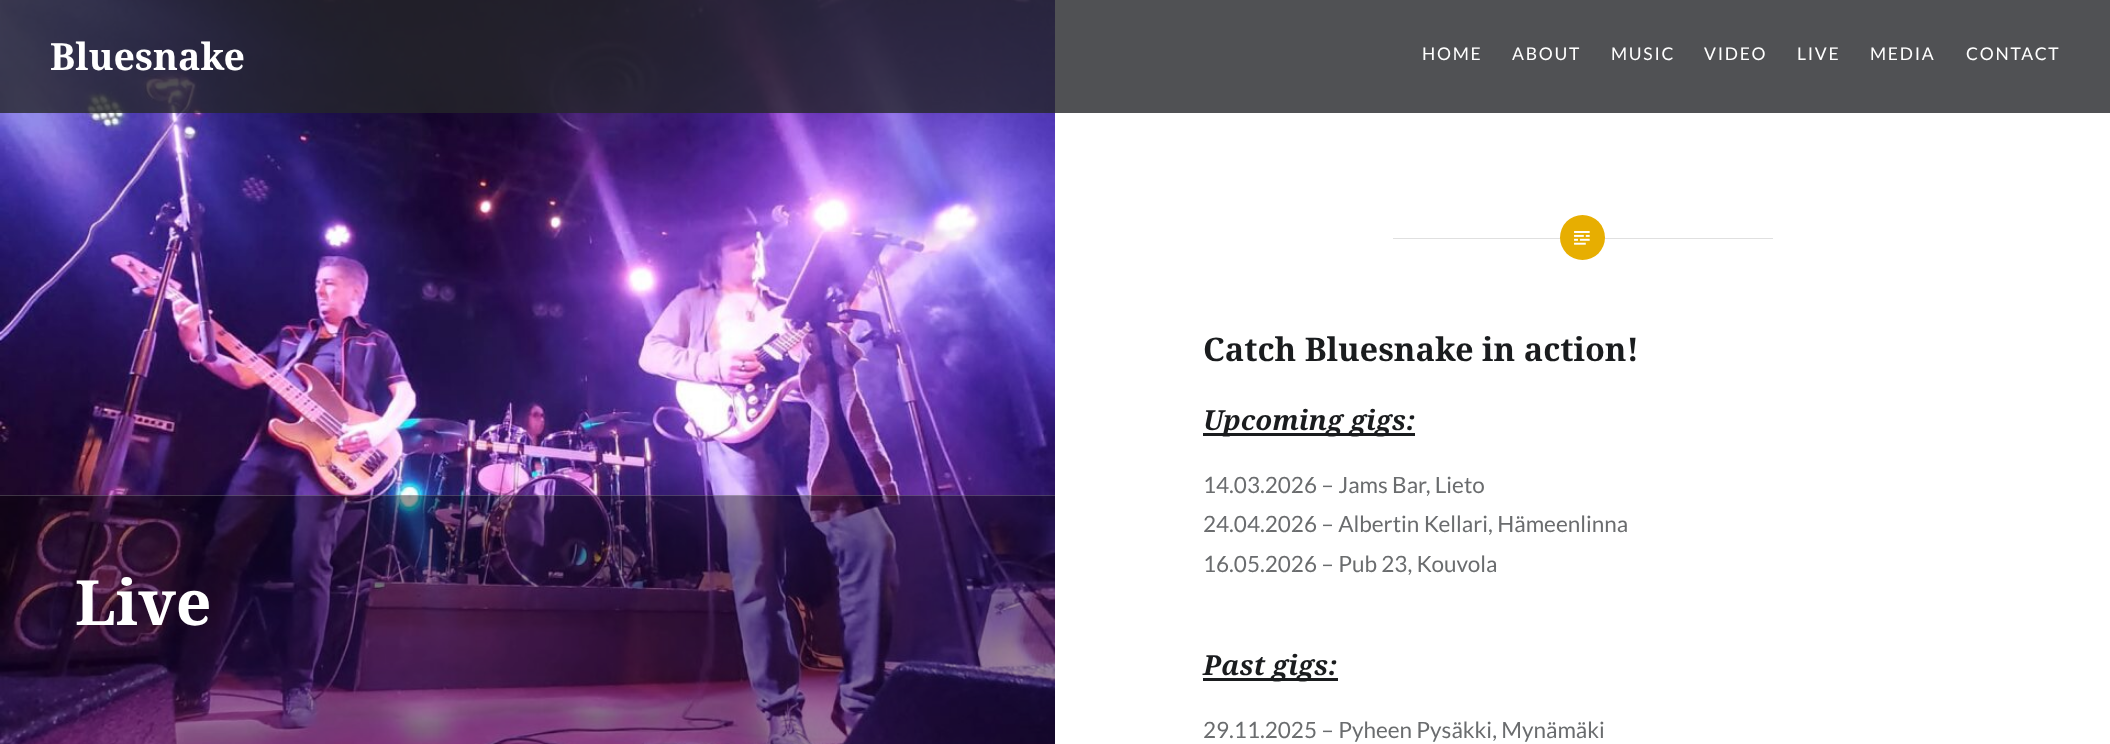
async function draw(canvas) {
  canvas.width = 2110;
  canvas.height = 744;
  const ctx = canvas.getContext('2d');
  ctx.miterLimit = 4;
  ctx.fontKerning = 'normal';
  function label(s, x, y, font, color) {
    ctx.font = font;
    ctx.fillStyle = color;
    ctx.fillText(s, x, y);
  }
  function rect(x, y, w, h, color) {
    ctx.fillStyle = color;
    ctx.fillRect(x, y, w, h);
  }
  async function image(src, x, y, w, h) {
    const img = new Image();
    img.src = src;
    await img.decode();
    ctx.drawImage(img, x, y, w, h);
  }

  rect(0, 0, 2110, 744, '#fff');
  await image('assets/img1.png', 0, 0, 1055, 744);
  rect(0, 0, 2110, 113, '#242629cc');
  label('Bluesnake', 50, 70, 'bold 37.5px Noto Serif', '#fff');
  ctx.letterSpacing = '1.75px';
  label('HOME', 1422, 60, '17.5px Lato', '#fff');
  label('ABOUT', 1512, 60, '17.5px Lato', '#fff');
  label('MUSIC', 1611, 60, '17.5px Lato', '#fff');
  label('VIDEO', 1704, 60, '17.5px Lato', '#fff');
  label('LIVE', 1797, 60, '17.5px Lato', '#fff');
  label('MEDIA', 1870, 60, '17.5px Lato', '#fff');
  label('CONTACT', 1966, 60, '17.5px Lato', '#fff');
  rect(1393, 238, 380, 1, '#e0e0e0');
  ctx.fillStyle = '#e7ae01';
  ctx.beginPath();
  ctx.arc(1582.5, 237.5, 22.5, 0, 2 * Math.PI);
  ctx.fill();
  await image('assets/img2.png', 1574, 231, 16, 14);
  rect(0, 495, 1055, 249, '#00000066');
  rect(0, 495, 1055, 1, '#ffffff33');
  ctx.letterSpacing = '0px';
  label('Live', 75, 625, 'bold 62.5px Noto Serif', '#fff');
  label('Catch Bluesnake in action!', 1203, 361, 'bold 32.5px Noto Serif', '#1a1c1e');
  rect(1203, 433, 212, 3, '#1a1c1e');
  label('Upcoming gigs:', 1203, 430, 'italic bold 27.5px Noto Serif', '#1a1c1e');
  label('14.03.2026 – Jams Bar, Lieto', 1203, 493, '22.5px Lato', '#6a6c6e');
  label('24.04.2026 – Albertin Kellari, Hämeenlinna', 1203, 532, '22.5px Lato', '#6a6c6e');
  label('16.05.2026 – Pub 23, Kouvola', 1203, 572, '22.5px Lato', '#6a6c6e');
  rect(1203, 678, 135, 3, '#1a1c1e');
  label('Past gigs:', 1203, 675, 'italic bold 27.5px Noto Serif', '#1a1c1e');
  label('29.11.2025 – Pyheen Pysäkki, Mynämäki', 1203, 738, '22.5px Lato', '#6a6c6e');
}

draw(document.querySelector('canvas'));
